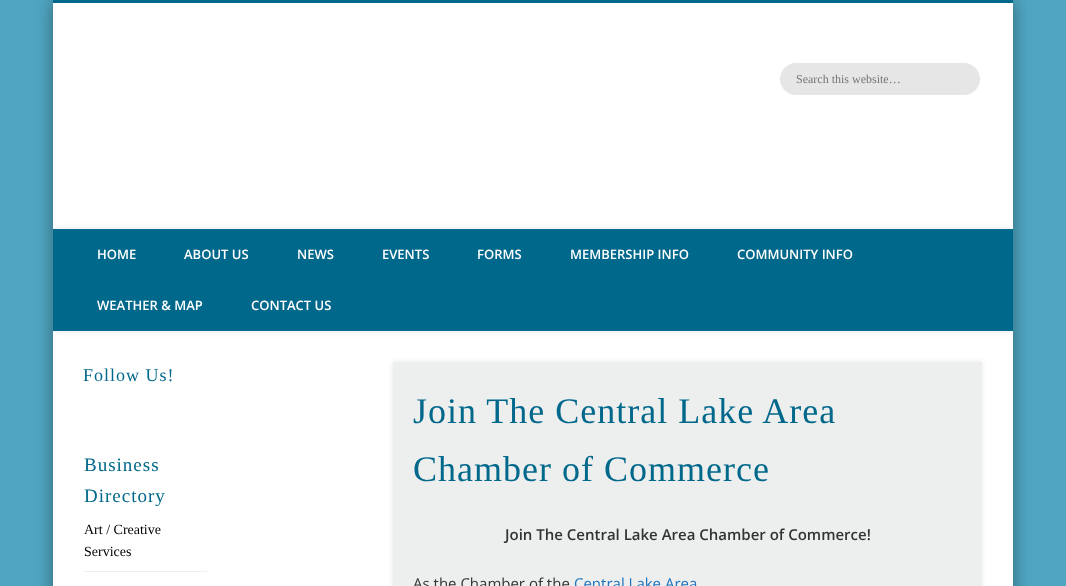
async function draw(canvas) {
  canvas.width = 1066;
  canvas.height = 586;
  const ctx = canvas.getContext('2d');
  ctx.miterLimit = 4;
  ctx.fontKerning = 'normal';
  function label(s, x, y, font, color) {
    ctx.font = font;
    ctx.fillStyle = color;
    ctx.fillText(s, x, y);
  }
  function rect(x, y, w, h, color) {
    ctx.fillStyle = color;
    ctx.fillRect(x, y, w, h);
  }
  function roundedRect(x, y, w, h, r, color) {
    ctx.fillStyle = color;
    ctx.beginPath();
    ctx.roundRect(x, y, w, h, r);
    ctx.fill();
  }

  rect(0, 0, 1066, 586, '#50a6c2');
  ctx.fillStyle = '#00000066';
  ctx.filter = 'blur(9px)';
  ctx.beginPath();
  ctx.rect(53, 0, 960, 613);
  ctx.fill();
  ctx.filter = 'none';
  rect(53, 3, 960, 583, '#fff');
  rect(53, 0, 960, 3, '#00688b');
  roundedRect(780, 63, 200, 32, 16, '#e6e6e6');
  label('Search this website…', 796, 83, '12px Liberation Serif', '#757575');
  ctx.save();
  ctx.beginPath();
  ctx.rect(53, 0, 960, 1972);
  ctx.clip();
  ctx.fillStyle = '#0000001a';
  ctx.filter = 'blur(3.5px)';
  ctx.beginPath();
  ctx.rect(53, 229, 960, 102);
  ctx.fill();
  ctx.filter = 'none';
  ctx.restore();
  rect(53, 229, 960, 102, '#00688b');
  label('HOME', 97, 259, '600 13px Open Sans', '#fff');
  label('ABOUT US', 184, 259, '600 13px Open Sans', '#fff');
  label('NEWS', 297, 259, '600 13px Open Sans', '#fff');
  label('EVENTS', 382, 259, '600 13px Open Sans', '#fff');
  label('FORMS', 477, 259, '600 13px Open Sans', '#fff');
  label('MEMBERSHIP INFO', 570, 259, '600 13px Open Sans', '#fff');
  label('COMMUNITY INFO', 737, 259, '600 13px Open Sans', '#fff');
  label('WEATHER & MAP', 97, 310, '600 13px Open Sans', '#fff');
  label('CONTACT US', 251, 310, '600 13px Open Sans', '#fff');
  ctx.letterSpacing = '1px';
  label('Follow Us!', 83, 381, '18px Liberation Serif', '#00688b');
  label('Business', 84, 471, '19px Liberation Serif', '#00688b');
  label('Directory', 84, 502, '19px Liberation Serif', '#00688b');
  rect(84, 571, 123, 1, '#eee');
  ctx.letterSpacing = '0px';
  label('Art / Creative', 84, 534, '14px Liberation Serif', '#000');
  label('Services', 84, 556, '14px Liberation Serif', '#000');
  ctx.fillStyle = '#0000001a';
  ctx.filter = 'blur(2.5px)';
  ctx.beginPath();
  ctx.rect(393, 362, 589, 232);
  ctx.fill();
  ctx.filter = 'none';
  rect(393, 362, 589, 224, '#edeeee');
  ctx.letterSpacing = '1px';
  label('Join The Central Lake Area', 413, 423, '36px Liberation Serif', '#00688b');
  label('Chamber of Commerce', 413, 481, '36px Liberation Serif', '#00688b');
  ctx.letterSpacing = '0px';
  label('Join The Central Lake Area Chamber of Commerce!', 505, 540, '600 15px Open Sans', '#333');
  label('As the Chamber of the', 413, 589, '15px Open Sans', '#333');
  label('Central Lake Area', 574, 589, '15px Open Sans', '#1e73be');
}

draw(document.querySelector('canvas'));
